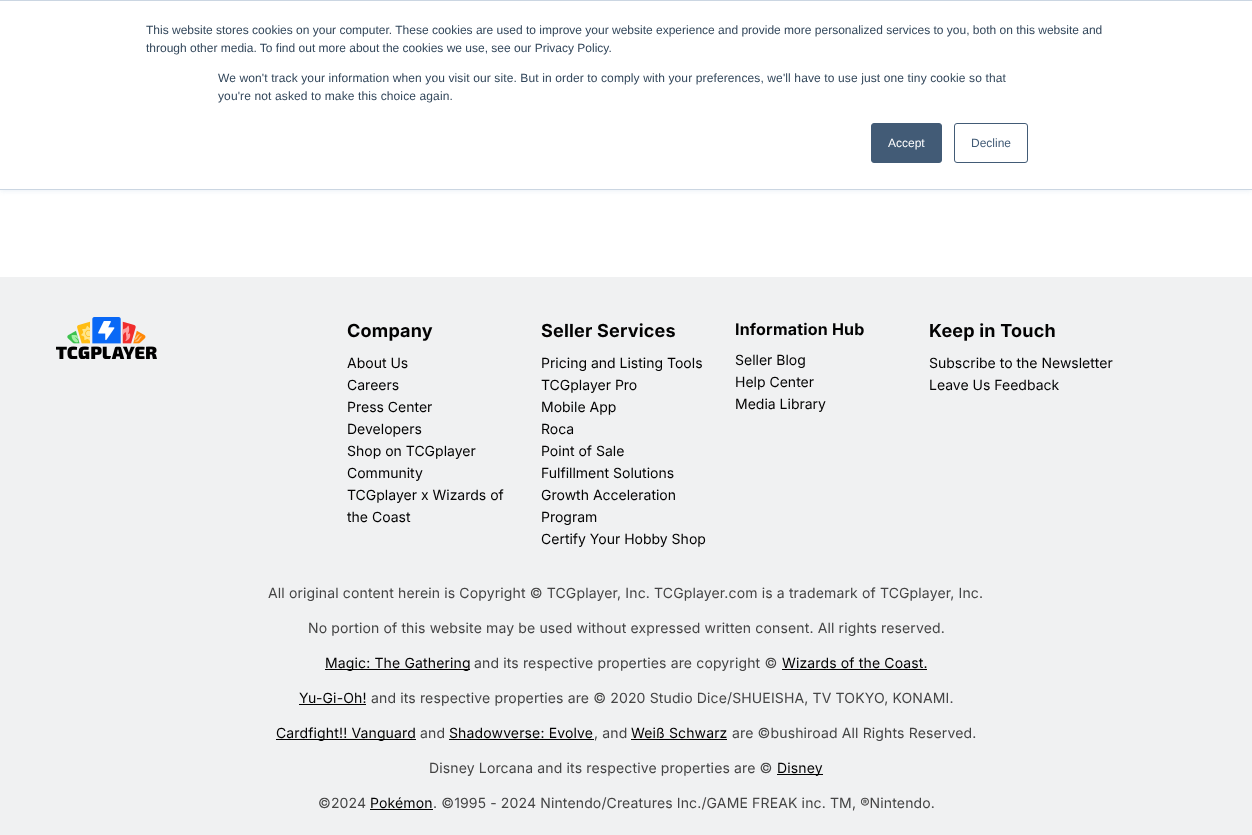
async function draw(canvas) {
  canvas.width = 1252;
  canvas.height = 835;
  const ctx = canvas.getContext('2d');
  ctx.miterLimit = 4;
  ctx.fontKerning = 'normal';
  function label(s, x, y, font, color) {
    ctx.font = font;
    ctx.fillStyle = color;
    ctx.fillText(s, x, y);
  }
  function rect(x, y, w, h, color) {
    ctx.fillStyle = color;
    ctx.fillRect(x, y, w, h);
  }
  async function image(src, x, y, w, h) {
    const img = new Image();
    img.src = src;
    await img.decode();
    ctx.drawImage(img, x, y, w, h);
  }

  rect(0, 0, 1252, 835, '#fff');
  ctx.fillStyle = '#eaf0f6';
  ctx.filter = 'blur(2.5px)';
  ctx.beginPath();
  ctx.rect(0, 1, 1252, 190);
  ctx.fill();
  ctx.filter = 'none';
  rect(0, 1, 1252, 188, '#fff');
  rect(0, 0, 1252, 1, '#cbd6e2');
  rect(0, 189, 1252, 1, '#cbd6e2');
  label('This website stores cookies on your computer. These cookies are used to improve your website experience and provide more personalized services to you, both on this website and', 146, 34, '12px Liberation Sans', '#33475b');
  label('through other media. To find out more about the cookies we use, see our Privacy Policy.', 146, 52, '12px Liberation Sans', '#33475b');
  ctx.letterSpacing = '0.12px';
  label('We won\'t track your information when you visit our site. But in order to comply with your preferences, we\'ll have to use just one tiny cookie so that', 218, 82, '12px Liberation Sans', '#33475b');
  label('you\'re not asked to make this choice again.', 218, 100, '12px Liberation Sans', '#33475b');
  ctx.fillStyle = '#425b76';
  ctx.beginPath();
  ctx.roundRect(871.5, 123.5, 70, 39, 2.5);
  ctx.fill();
  ctx.strokeStyle = '#425b76';
  ctx.stroke();
  ctx.letterSpacing = '0px';
  label('Accept', 888, 147, '12px Liberation Sans', '#fff');
  ctx.beginPath();
  ctx.roundRect(954.5, 123.5, 73, 39, 2.5);
  ctx.stroke();
  label('Decline', 971, 147, '12px Liberation Sans', '#425b76');
  rect(0, 277, 1252, 558, '#f0f1f2');
  await image('assets/img1.png', 56, 317, 101, 42);
  ctx.letterSpacing = '0.2px';
  label('Company', 347, 337, 'bold 18px Inter', '#020202');
  ctx.letterSpacing = '0px';
  label('About Us', 347, 368, '14px Inter', '#020202');
  label('Careers', 347, 390, '14px Inter', '#020202');
  label('Press Center', 347, 412, '14px Inter', '#020202');
  label('Developers', 347, 434, '14px Inter', '#020202');
  label('Shop on TCGplayer', 347, 456, '14px Inter', '#020202');
  label('Community', 347, 478, '14px Inter', '#020202');
  label('TCGplayer x Wizards of', 347, 500, '14px Inter', '#020202');
  label('the Coast', 347, 522, '14px Inter', '#020202');
  ctx.letterSpacing = '0.2px';
  label('Seller Services', 541, 337, 'bold 18px Inter', '#020202');
  ctx.letterSpacing = '0px';
  label('Pricing and Listing Tools', 541, 368, '14px Inter', '#020202');
  label('TCGplayer Pro', 541, 390, '14px Inter', '#020202');
  label('Mobile App', 541, 412, '14px Inter', '#020202');
  label('Roca', 541, 434, '14px Inter', '#020202');
  label('Point of Sale', 541, 456, '14px Inter', '#020202');
  label('Fulfillment Solutions', 541, 478, '14px Inter', '#020202');
  label('Growth Acceleration', 541, 500, '14px Inter', '#020202');
  label('Program', 541, 522, '14px Inter', '#020202');
  label('Certify Your Hobby Shop', 541, 544, '14px Inter', '#020202');
  ctx.letterSpacing = '0.2px';
  label('Information Hub', 735, 335, 'bold 16px Inter', '#020202');
  ctx.letterSpacing = '0px';
  label('Seller Blog', 735, 365, '14px Inter', '#020202');
  label('Help Center', 735, 387, '14px Inter', '#020202');
  label('Media Library', 735, 409, '14px Inter', '#020202');
  ctx.letterSpacing = '0.2px';
  label('Keep in Touch', 929, 337, 'bold 18px Inter', '#020202');
  ctx.letterSpacing = '0px';
  label('Subscribe to the Newsletter', 929, 368, '14px Inter', '#020202');
  label('Leave Us Feedback', 929, 390, '14px Inter', '#020202');
  ctx.letterSpacing = '0.14px';
  label('All original content herein is Copyright © TCGplayer, Inc. TCGplayer.com is a trademark of TCGplayer, Inc.', 268, 598, '14px Inter', '#444');
  label('No portion of this website may be used without expressed written consent. All rights reserved.', 308, 633, '14px Inter', '#444');
  rect(325, 669, 145, 1, '#000');
  label('Magic: The Gathering', 325, 668, '14px Inter', '#020202');
  label('and its respective properties are copyright ©', 474, 668, '14px Inter', '#444');
  label('Wizards of the Coast.', 782, 668, '14px Inter', '#020202');
  rect(782, 669, 145, 1, '#000');
  label('Yu-Gi-Oh!', 299, 703, '14px Inter', '#020202');
  rect(299, 704, 67, 1, '#000');
  label('and its respective properties are © 2020 Studio Dice/SHUEISHA, TV TOKYO, KONAMI.', 371, 703, '14px Inter', '#444');
  rect(276, 739, 140, 1, '#000');
  label('Cardfight!! Vanguard', 276, 738, '14px Inter', '#020202');
  label('and', 420, 738, '14px Inter', '#444');
  label('Shadowverse: Evolve', 449, 738, '14px Inter', '#020202');
  label(', and', 594, 738, '14px Inter', '#444');
  rect(449, 739, 145, 1, '#000');
  label('Weiß Schwarz', 631, 738, '14px Inter', '#020202');
  rect(631, 739, 96, 1, '#000');
  label('are ©bushiroad All Rights Reserved.', 732, 738, '14px Inter', '#444');
  label('Disney Lorcana and its respective properties are ©', 429, 773, '14px Inter', '#444');
  rect(777, 774, 46, 1, '#000');
  label('Disney', 777, 773, '14px Inter', '#020202');
  label('©2024', 318, 808, '14px Inter', '#444');
  label('Pokémon', 370, 808, '14px Inter', '#020202');
  label('. ©1995 - 2024 Nintendo/Creatures Inc./GAME FREAK inc. TM, ®Nintendo.', 433, 808, '14px Inter', '#444');
  rect(370, 809, 63, 1, '#000');
}

draw(document.querySelector('canvas'));
